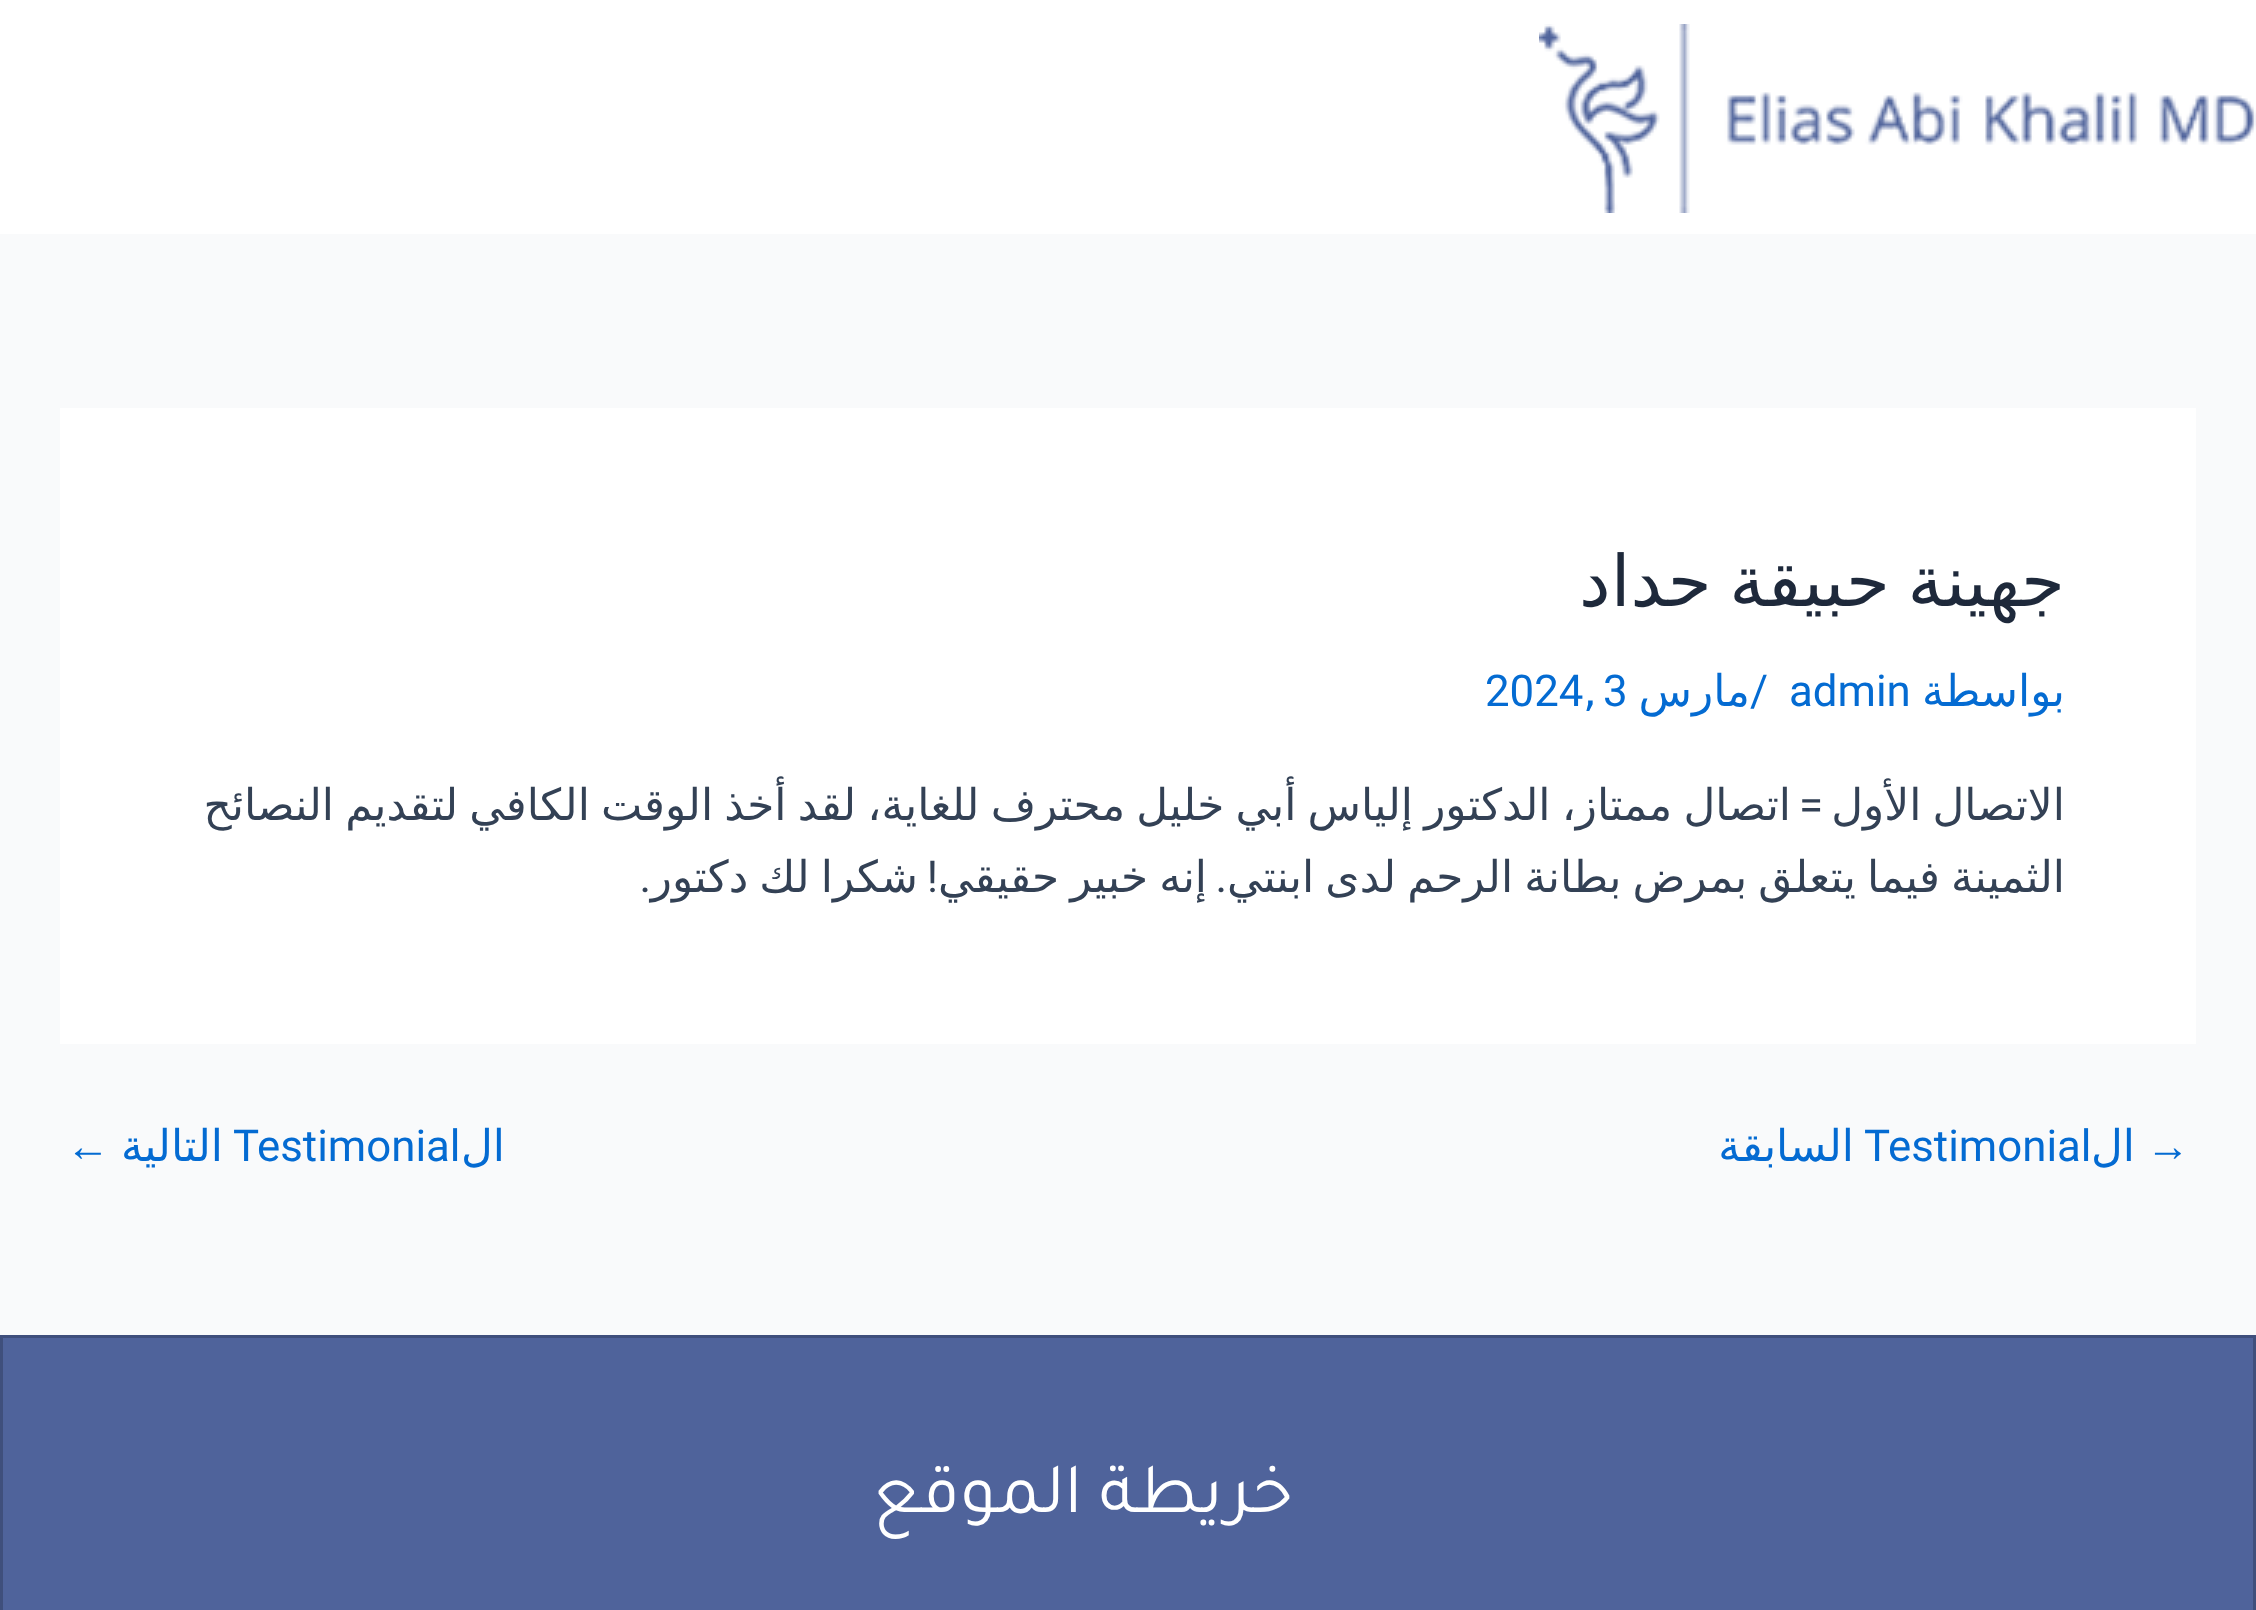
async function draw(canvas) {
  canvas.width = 2256;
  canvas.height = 1610;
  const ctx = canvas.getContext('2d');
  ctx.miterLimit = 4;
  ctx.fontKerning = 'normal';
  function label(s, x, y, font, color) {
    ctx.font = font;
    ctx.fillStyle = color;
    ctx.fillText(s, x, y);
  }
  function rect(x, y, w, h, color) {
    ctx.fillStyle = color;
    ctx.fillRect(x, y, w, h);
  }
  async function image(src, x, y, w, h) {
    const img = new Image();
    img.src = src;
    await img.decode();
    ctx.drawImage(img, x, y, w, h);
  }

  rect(0, 0, 2256, 1610, '#f9fafb');
  rect(0, 0, 2256, 234, '#fff');
  await image('assets/img1.png', 1539, 24, 717, 189);
  rect(60, 408, 2136, 636, '#fff');
  ctx.wordSpacing = '-5px';
  ctx.direction = 'rtl';
  label('جهينة حبيقة حداد', 2065, 606, '71px DejaVu Sans', '#1e293b');
  ctx.wordSpacing = '0px';
  label('بواسطة', 2065, 706, '43.8px DejaVu Sans', '#046bd2');
  ctx.direction = 'ltr';
  label('admin', 1789, 706, '43.8px Roboto', '#046bd2');
  label('/', 1750, 706, '43.8px Roboto', '#046bd2');
  ctx.direction = 'rtl';
  label('مارس', 1750, 706, '43.8px DejaVu Sans', '#046bd2');
  ctx.direction = 'ltr';
  label('3', 1603, 706, '43.8px Roboto', '#046bd2');
  label(',', 1583, 706, '43.8px DejaVu Sans', '#046bd2');
  label('2024', 1485, 706, '43.8px Roboto', '#046bd2');
  ctx.wordSpacing = '-2.75px';
  ctx.direction = 'rtl';
  label('الاتصال الأول', 2065, 820, '43.8px DejaVu Sans', '#334155');
  label('اتصال ممتاز، الدكتور إلياس أبي خليل محترف للغاية، لقد أخذ الوقت الكافي لتقديم النصائح', 1791, 820, '43.8px DejaVu Sans', '#334155');
  ctx.wordSpacing = '0px';
  label('=', 1823, 820, '43.8px Roboto', '#334155');
  ctx.wordSpacing = '-2.75px';
  label('الثمينة فيما يتعلق بمرض بطانة الرحم لدى ابنتي', 2065, 892, '43.8px DejaVu Sans', '#334155');
  ctx.wordSpacing = '0px';
  label('.', 1227, 892, '43.8px Roboto', '#334155');
  ctx.wordSpacing = '-2.75px';
  label('إنه خبير حقيقي', 1207, 892, '43.8px DejaVu Sans', '#334155');
  ctx.wordSpacing = '0px';
  label('!', 938, 892, '43.8px Roboto', '#334155');
  ctx.wordSpacing = '-2.75px';
  label('شكرا لك دكتور', 918, 892, '43.8px DejaVu Sans', '#334155');
  ctx.wordSpacing = '0px';
  label('.', 651, 892, '43.8px Roboto', '#334155');
  ctx.direction = 'ltr';
  label('→', 2146, 1161, '43.8px Liberation Sans', '#046bd2');
  ctx.direction = 'rtl';
  label('ال', 2135, 1161, '43.8px DejaVu Sans', '#046bd2');
  ctx.direction = 'ltr';
  label('Testimonial', 1864, 1161, '43.8px Roboto', '#046bd2');
  ctx.direction = 'rtl';
  label('السابقة', 1854, 1161, '43.8px DejaVu Sans', '#046bd2');
  label('ال', 505, 1161, '43.8px DejaVu Sans', '#046bd2');
  ctx.direction = 'ltr';
  label('Testimonial', 233, 1161, '43.8px Roboto', '#046bd2');
  ctx.direction = 'rtl';
  label('التالية', 223, 1161, '43.8px DejaVu Sans', '#046bd2');
  ctx.direction = 'ltr';
  label('←', 66, 1161, '43.8px Liberation Sans', '#046bd2');
  ctx.fillStyle = '#4f639b';
  ctx.beginPath();
  ctx.rect(1.5, 1336.5, 2253, 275);
  ctx.fill();
  ctx.strokeStyle = '#3f4f7c';
  ctx.lineWidth = 3;
  ctx.stroke();
  ctx.direction = 'rtl';
  label('خريطة الموقع', 1293, 1512, '72px Tajawal', '#fff');
}

draw(document.querySelector('canvas'));
